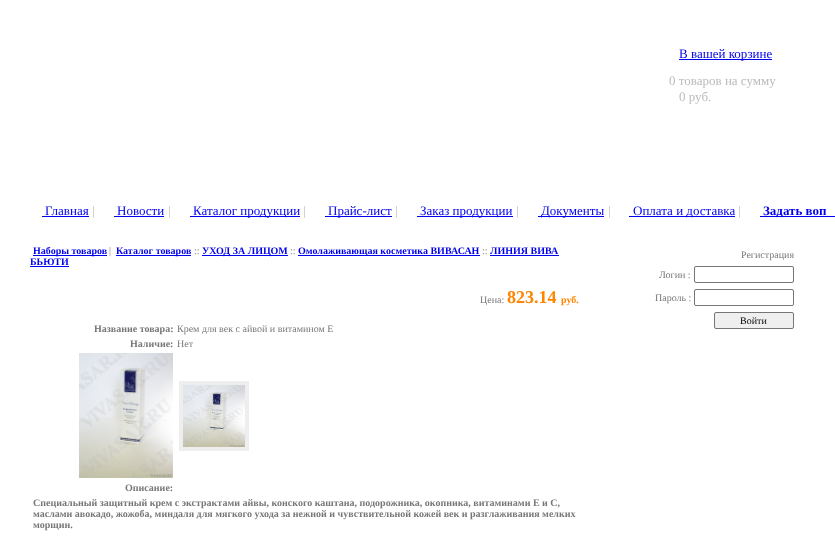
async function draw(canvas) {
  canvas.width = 835;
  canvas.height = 542;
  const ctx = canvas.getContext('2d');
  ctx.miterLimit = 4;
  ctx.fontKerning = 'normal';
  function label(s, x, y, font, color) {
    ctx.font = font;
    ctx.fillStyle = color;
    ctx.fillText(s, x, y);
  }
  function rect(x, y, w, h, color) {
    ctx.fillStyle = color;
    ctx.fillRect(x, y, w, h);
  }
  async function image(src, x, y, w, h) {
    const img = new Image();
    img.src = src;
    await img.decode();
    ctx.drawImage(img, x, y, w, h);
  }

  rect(0, 0, 835, 542, '#fff');
  rect(679, 59, 93, 1, '#00e');
  label('В вашей корзине', 679, 58, '13px Liberation Serif', '#00e');
  label('0 товаров на сумму', 669, 85, '13px Liberation Serif', '#bbb');
  label('0 руб.', 679, 101, '13px Liberation Serif', '#bbb');
  label('Главная', 45, 215, '13px Liberation Serif', '#00e');
  rect(42, 216, 47, 1, '#00e');
  label('|', 92, 215, '13px Liberation Serif', '#bbb');
  label('Новости', 117, 215, '13px Liberation Serif', '#00e');
  rect(114, 216, 50, 1, '#00e');
  label('|', 168, 215, '13px Liberation Serif', '#bbb');
  rect(190, 216, 110, 1, '#00e');
  label('Каталог продукции', 193, 215, '13px Liberation Serif', '#00e');
  label('|', 303, 215, '13px Liberation Serif', '#bbb');
  rect(325, 216, 67, 1, '#00e');
  label('Прайс-лист', 328, 215, '13px Liberation Serif', '#00e');
  label('|', 395, 215, '13px Liberation Serif', '#bbb');
  rect(417, 216, 96, 1, '#00e');
  label('Заказ продукции', 420, 215, '13px Liberation Serif', '#00e');
  label('|', 516, 215, '13px Liberation Serif', '#bbb');
  rect(538, 216, 66, 1, '#00e');
  label('Документы', 541, 215, '13px Liberation Serif', '#00e');
  label('|', 608, 215, '13px Liberation Serif', '#bbb');
  rect(629, 216, 106, 1, '#00e');
  label('Оплата и доставка', 633, 215, '13px Liberation Serif', '#00e');
  label('|', 738, 215, '13px Liberation Serif', '#bbb');
  rect(760, 216, 75, 1, '#00e');
  label('Задать воп', 763, 215, 'bold 13px Liberation Serif', '#00e');
  rect(33, 255, 74, 1, '#00e');
  label('Наборы товаров', 33, 254, 'bold 10px Liberation Serif', '#00e');
  label('|', 109, 254, '10px Liberation Serif', '#777');
  rect(116, 255, 75, 1, '#00e');
  label('Каталог товаров', 116, 254, 'bold 10px Liberation Serif', '#00e');
  label('::', 194, 254, '10px Liberation Serif', '#777');
  rect(202, 255, 86, 1, '#00e');
  label('УХОД ЗА ЛИЦОМ', 202, 254, 'bold 10px Liberation Serif', '#00e');
  label('::', 290, 254, '10px Liberation Serif', '#777');
  rect(298, 255, 182, 1, '#00e');
  label('Омолаживающая косметика ВИВАСАН', 298, 254, 'bold 10px Liberation Serif', '#00e');
  label('::', 482, 254, '10px Liberation Serif', '#777');
  rect(490, 255, 69, 1, '#00e');
  label('ЛИНИЯ ВИВА', 490, 254, 'bold 10px Liberation Serif', '#00e');
  label('БЬЮТИ', 30, 265, 'bold 10px Liberation Serif', '#00e');
  rect(30, 266, 39, 1, '#00e');
  label('Цена:', 480, 303, '10px Liberation Serif', '#777');
  label('823.14', 507, 303, 'bold 18px Liberation Serif', '#ff8400');
  label('руб.', 561, 303, 'bold 10px Liberation Serif', '#ff8400');
  label('Название товара:', 94, 332, 'bold 10px Liberation Serif', '#777');
  label('Крем для век с айвой и витамином Е', 177, 332, '10px Liberation Serif', '#777');
  label('Наличие:', 130, 347, 'bold 10px Liberation Serif', '#777');
  label('Нет', 177, 347, '10px Liberation Serif', '#777');
  await image('assets/img1.png', 79, 353, 94, 125);
  rect(179, 381, 70, 70, '#eee');
  await image('assets/img2.png', 183, 385, 62, 62);
  label('Описание:', 125, 491, 'bold 10px Liberation Serif', '#777');
  label('Специальный защитный крем с экстрактами айвы, конского каштана, подорожника, окопника, витаминами Е и С,', 33, 506, 'bold 10px Liberation Serif', '#777');
  label('маслами авокадо, жожоба, миндаля для мягкого ухода за нежной и чувствительной кожей век и разглаживания мелких', 33, 517, 'bold 10px Liberation Serif', '#777');
  label('морщин.', 33, 528, 'bold 10px Liberation Serif', '#777');
  label('Регистрация', 741, 258, '10px Liberation Serif', '#777');
  label('Логин :', 659, 278, '10px Liberation Serif', '#777');
  ctx.beginPath();
  ctx.roundRect(694.5, 266.5, 99, 16, 1.5);
  ctx.strokeStyle = '#767676';
  ctx.stroke();
  label('Пароль :', 655, 301, '10px Liberation Serif', '#777');
  ctx.beginPath();
  ctx.roundRect(694.5, 289.5, 99, 16, 1.5);
  ctx.stroke();
  ctx.fillStyle = '#efefef';
  ctx.beginPath();
  ctx.roundRect(714.5, 312.5, 79, 16, 1.5);
  ctx.fill();
  ctx.stroke();
  label('Войти', 740, 324, '10px Liberation Serif', '#000');
}

draw(document.querySelector('canvas'));
